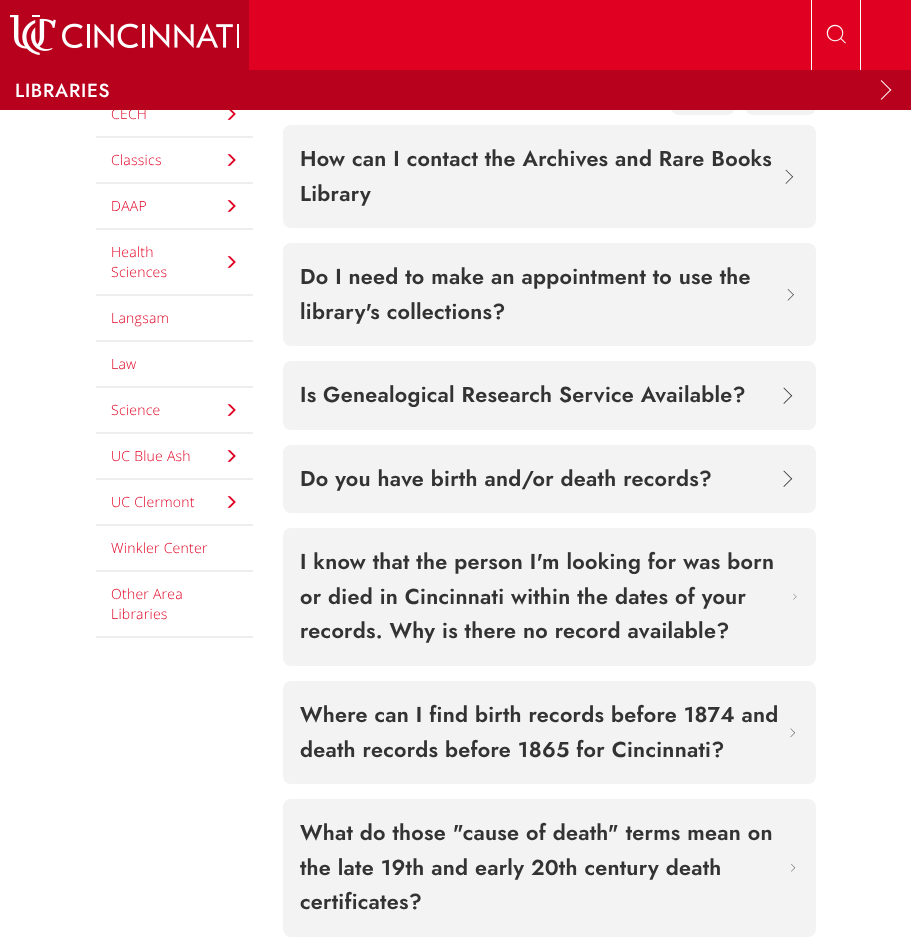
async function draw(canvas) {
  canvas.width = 911;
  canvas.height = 942;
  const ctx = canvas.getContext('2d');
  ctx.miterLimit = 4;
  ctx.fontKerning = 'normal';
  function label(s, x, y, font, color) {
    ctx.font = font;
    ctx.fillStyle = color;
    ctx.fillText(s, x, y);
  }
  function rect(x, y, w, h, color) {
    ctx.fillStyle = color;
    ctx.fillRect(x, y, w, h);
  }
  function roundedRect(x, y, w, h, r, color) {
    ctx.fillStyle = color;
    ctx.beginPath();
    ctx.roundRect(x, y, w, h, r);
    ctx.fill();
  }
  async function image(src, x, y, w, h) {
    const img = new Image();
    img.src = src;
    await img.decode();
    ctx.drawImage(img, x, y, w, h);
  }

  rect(0, 0, 911, 942, '#fff');
  rect(249, 0, 662, 70, '#e00122');
  rect(0, 0, 249, 70, '#b8011c');
  await image('assets/img1.png', 10, 15, 229, 40);
  rect(860, 0, 1, 70, '#fff');
  rect(811, 0, 1, 70, '#fff');
  await image('assets/img2.png', 826, 24, 20, 20);
  ctx.letterSpacing = '0.25px';
  label('CECH', 111, 119, '300 14px Open Sans', '#e00122');
  roundedRect(671, 82, 64, 33, 8, '#f3f3f3');
  roundedRect(745, 82, 71, 33, 8, '#f3f3f3');
  rect(0, 70, 911, 40, '#b8011c');
  ctx.letterSpacing = '0.75px';
  label('LIBRARIES', 15, 97, '500 19px Jost', '#fff');
  await image('assets/img3.png', 880, 80, 12, 20);
  rect(96, 136, 157, 2, '#eee');
  await image('assets/img4.png', 227, 110, 9, 10);
  rect(96, 182, 157, 2, '#eee');
  ctx.letterSpacing = '0.25px';
  label('Classics', 111, 165, '300 14px Open Sans', '#e00122');
  await image('assets/img5.png', 227, 154, 9, 12);
  rect(96, 228, 157, 2, '#eee');
  label('DAAP', 111, 211, '300 14px Open Sans', '#e00122');
  await image('assets/img5.png', 227, 200, 9, 12);
  rect(96, 294, 157, 2, '#eee');
  label('Health', 111, 257, '300 14px Open Sans', '#e00122');
  await image('assets/img5.png', 227, 256, 9, 12);
  label('Sciences', 111, 277, '300 14px Open Sans', '#e00122');
  rect(96, 340, 157, 2, '#eee');
  label('Langsam', 111, 323, '300 14px Open Sans', '#e00122');
  rect(96, 386, 157, 2, '#eee');
  label('Law', 111, 369, '300 14px Open Sans', '#e00122');
  rect(96, 432, 157, 2, '#eee');
  label('Science', 111, 415, '300 14px Open Sans', '#e00122');
  await image('assets/img5.png', 227, 404, 9, 12);
  rect(96, 478, 157, 2, '#eee');
  label('UC Blue Ash', 111, 461, '300 14px Open Sans', '#e00122');
  await image('assets/img5.png', 227, 450, 9, 12);
  rect(96, 524, 157, 2, '#eee');
  label('UC Clermont', 111, 507, '300 14px Open Sans', '#e00122');
  await image('assets/img5.png', 227, 496, 9, 12);
  rect(96, 570, 157, 2, '#eee');
  label('Winkler Center', 111, 553, '300 14px Open Sans', '#e00122');
  rect(96, 636, 157, 2, '#eee');
  label('Other Area', 111, 599, '300 14px Open Sans', '#e00122');
  label('Libraries', 111, 619, '300 14px Open Sans', '#e00122');
  roundedRect(283, 125, 533, 103, 8, '#f3f3f3');
  label('How can I contact the Archives and Rare Books', 300, 166, '600 21.6px Jost', '#333');
  label('Library', 300, 201, '600 21.6px Jost', '#333');
  await image('assets/img6.png', 785, 169, 9, 15);
  roundedRect(283, 243, 533, 103, 8, '#f3f3f3');
  label('Do I need to make an appointment to use the', 300, 284, '600 21.6px Jost', '#333');
  label('library\'s collections?', 300, 319, '600 21.6px Jost', '#333');
  await image('assets/img7.png', 787, 289, 7, 12);
  roundedRect(283, 361, 533, 69, 8, '#f3f3f3');
  label('Is Genealogical Research Service Available?', 300, 402, '600 21.6px Jost', '#333');
  await image('assets/img8.png', 783, 387, 10, 17);
  roundedRect(283, 445, 533, 68, 8, '#f3f3f3');
  label('Do you have birth and/or death records?', 300, 486, '600 21.6px Jost', '#333');
  await image('assets/img8.png', 783, 470, 10, 17);
  roundedRect(283, 528, 533, 138, 8, '#f3f3f3');
  label('I know that the person I\'m looking for was born', 300, 569, '600 21.6px Jost', '#333');
  label('or died in Cincinnati within the dates of your', 300, 604, '600 21.6px Jost', '#333');
  label('records. Why is there no record available?', 300, 638, '600 21.6px Jost', '#333');
  await image('assets/img9.png', 793, 593, 4, 7);
  roundedRect(283, 681, 533, 103, 8, '#f3f3f3');
  label('Where can I find birth records before 1874 and', 300, 722, '600 21.6px Jost', '#333');
  label('death records before 1865 for Cincinnati?', 300, 757, '600 21.6px Jost', '#333');
  await image('assets/img10.png', 790, 728, 5, 9);
  roundedRect(283, 799, 533, 138, 8, '#f3f3f3');
  label('What do those "cause of death" terms mean on', 300, 840, '600 21.6px Jost', '#333');
  label('the late 19th and early 20th century death', 300, 875, '600 21.6px Jost', '#333');
  label('certificates?', 300, 909, '600 21.6px Jost', '#333');
  await image('assets/img11.png', 791, 864, 5, 8);
}

draw(document.querySelector('canvas'));
